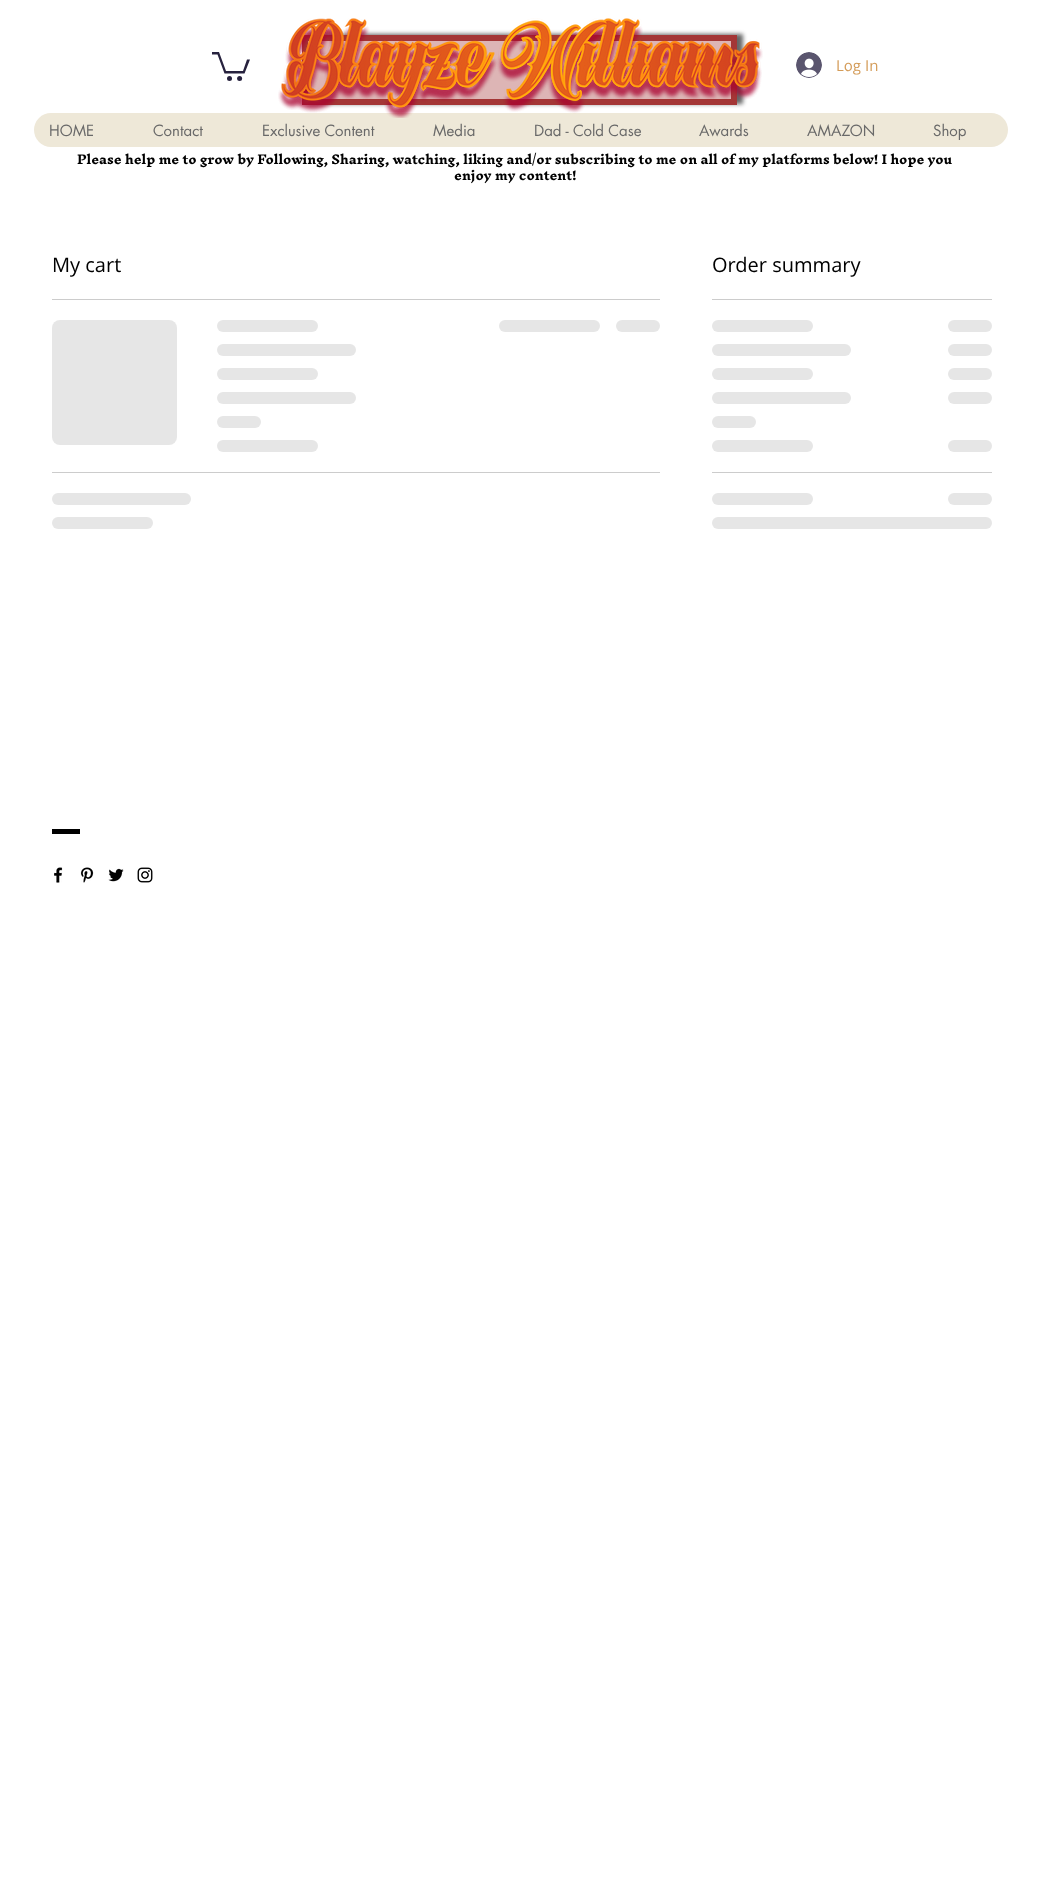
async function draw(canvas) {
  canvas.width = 1044;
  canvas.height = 1892;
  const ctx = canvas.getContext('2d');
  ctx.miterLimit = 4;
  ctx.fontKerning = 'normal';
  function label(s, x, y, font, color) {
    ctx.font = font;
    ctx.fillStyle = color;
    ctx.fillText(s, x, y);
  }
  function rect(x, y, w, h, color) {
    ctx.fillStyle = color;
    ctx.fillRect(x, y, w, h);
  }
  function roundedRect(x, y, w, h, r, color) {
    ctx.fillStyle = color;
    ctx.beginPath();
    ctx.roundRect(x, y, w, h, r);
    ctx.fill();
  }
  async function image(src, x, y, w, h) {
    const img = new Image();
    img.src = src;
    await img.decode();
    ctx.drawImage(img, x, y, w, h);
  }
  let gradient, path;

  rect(0, 0, 1044, 1892, '#fff');
  ctx.fillStyle = '#00000099';
  ctx.filter = 'blur(2px)';
  ctx.beginPath();
  ctx.rect(308, 34, 435, 70);
  ctx.fill();
  ctx.filter = 'none';
  ctx.fillStyle = '#ddb5b5';
  ctx.beginPath();
  ctx.rect(305, 38, 429, 64);
  ctx.fill();
  ctx.strokeStyle = '#a43636';
  ctx.lineWidth = 6;
  ctx.stroke();
  roundedRect(34, 113, 974, 34, 17, '#eee8d8');
  await image('assets/img1.png', 278, 18, 485, 100);
  ctx.fillStyle = '#27223e';
  path = new Path2D('M250 59.5L244.5 73.5H224.5L217.5 54.5H212V52H219L226 71H243L247 59.5');
  ctx.fill(path);
  ctx.beginPath();
  ctx.arc(239.6, 78.4, 2.5, 0, 2 * Math.PI);
  ctx.fill();
  ctx.beginPath();
  ctx.arc(229.5, 78.4, 2.5, 0, 2 * Math.PI);
  ctx.fill();
  await image('assets/img2.png', 796, 52, 26, 26);
  label('Log In', 836, 71, '15px Open Sans', '#d49c59');
  label('HOME', 49, 136, '15px futura', '#696969');
  label('Contact', 153, 136, '15px futura', '#696969');
  label('Exclusive Content', 262, 136, '15px futura', '#696969');
  label('Media', 433, 136, '15px futura', '#696969');
  label('Dad - Cold Case', 534, 136, '15px futura', '#696969');
  label('Awards', 699, 136, '15px futura', '#696969');
  label('AMAZON', 807, 136, '15px futura', '#696969');
  label('Shop', 933, 136, '15px futura', '#696969');
  label('Please help me to grow by Following, Sharing, watching, liking and/or subscribing to me on all of my platforms below! I hope you', 77, 164, 'bold 12px Inknut Antiqua', '#000');
  label('enjoy my content!', 454, 180, 'bold 12px Inknut Antiqua', '#000');
  rect(52, 299, 608, 1, '#ccc');
  label('My cart', 52, 272, '20px Open Sans', '#000');
  gradient = ctx.createLinearGradient(52, 383, 552, 383);
  gradient.addColorStop(0.25, '#e6e6e6');
  gradient.addColorStop(0.37, '#ccc');
  gradient.addColorStop(0.63, '#e6e6e6');
  ctx.fillStyle = gradient;
  ctx.beginPath();
  ctx.roundRect(52, 320, 125, 125, 8);
  ctx.fill();
  gradient = ctx.createLinearGradient(217, 326, 621, 326);
  gradient.addColorStop(0.25, '#e6e6e6');
  gradient.addColorStop(0.37, '#ccc');
  gradient.addColorStop(0.63, '#e6e6e6');
  ctx.fillStyle = gradient;
  ctx.beginPath();
  ctx.roundRect(217, 320, 101, 12, 6);
  ctx.fill();
  gradient = ctx.createLinearGradient(217, 350, 773, 350);
  gradient.addColorStop(0.25, '#e6e6e6');
  gradient.addColorStop(0.37, '#ccc');
  gradient.addColorStop(0.63, '#e6e6e6');
  ctx.fillStyle = gradient;
  ctx.beginPath();
  ctx.roundRect(217, 344, 139, 12, 6);
  ctx.fill();
  gradient = ctx.createLinearGradient(217, 374, 621, 374);
  gradient.addColorStop(0.25, '#e6e6e6');
  gradient.addColorStop(0.37, '#ccc');
  gradient.addColorStop(0.63, '#e6e6e6');
  ctx.fillStyle = gradient;
  ctx.beginPath();
  ctx.roundRect(217, 368, 101, 12, 6);
  ctx.fill();
  gradient = ctx.createLinearGradient(217, 398, 773, 398);
  gradient.addColorStop(0.25, '#e6e6e6');
  gradient.addColorStop(0.37, '#ccc');
  gradient.addColorStop(0.63, '#e6e6e6');
  ctx.fillStyle = gradient;
  ctx.beginPath();
  ctx.roundRect(217, 392, 139, 12, 6);
  ctx.fill();
  gradient = ctx.createLinearGradient(217, 422, 393, 422);
  gradient.addColorStop(0.25, '#e6e6e6');
  gradient.addColorStop(0.37, '#ccc');
  gradient.addColorStop(0.63, '#e6e6e6');
  ctx.fillStyle = gradient;
  ctx.beginPath();
  ctx.roundRect(217, 416, 44, 12, 6);
  ctx.fill();
  gradient = ctx.createLinearGradient(217, 446, 621, 446);
  gradient.addColorStop(0.25, '#e6e6e6');
  gradient.addColorStop(0.37, '#ccc');
  gradient.addColorStop(0.63, '#e6e6e6');
  ctx.fillStyle = gradient;
  ctx.beginPath();
  ctx.roundRect(217, 440, 101, 12, 6);
  ctx.fill();
  gradient = ctx.createLinearGradient(499, 326, 903, 326);
  gradient.addColorStop(0.25, '#e6e6e6');
  gradient.addColorStop(0.37, '#ccc');
  gradient.addColorStop(0.63, '#e6e6e6');
  ctx.fillStyle = gradient;
  ctx.beginPath();
  ctx.roundRect(499, 320, 101, 12, 6);
  ctx.fill();
  gradient = ctx.createLinearGradient(616, 326, 792, 326);
  gradient.addColorStop(0.25, '#e6e6e6');
  gradient.addColorStop(0.37, '#ccc');
  gradient.addColorStop(0.63, '#e6e6e6');
  ctx.fillStyle = gradient;
  ctx.beginPath();
  ctx.roundRect(616, 320, 44, 12, 6);
  ctx.fill();
  rect(52, 472, 608, 1, '#ccc');
  gradient = ctx.createLinearGradient(52, 499, 608, 499);
  gradient.addColorStop(0.25, '#e6e6e6');
  gradient.addColorStop(0.37, '#ccc');
  gradient.addColorStop(0.63, '#e6e6e6');
  ctx.fillStyle = gradient;
  ctx.beginPath();
  ctx.roundRect(52, 493, 139, 12, 6);
  ctx.fill();
  gradient = ctx.createLinearGradient(52, 523, 456, 523);
  gradient.addColorStop(0.25, '#e6e6e6');
  gradient.addColorStop(0.37, '#ccc');
  gradient.addColorStop(0.63, '#e6e6e6');
  ctx.fillStyle = gradient;
  ctx.beginPath();
  ctx.roundRect(52, 517, 101, 12, 6);
  ctx.fill();
  rect(712, 299, 280, 1, '#ccc');
  label('Order summary', 712, 272, '20px Open Sans', '#000');
  gradient = ctx.createLinearGradient(712, 326, 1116, 326);
  gradient.addColorStop(0.25, '#e6e6e6');
  gradient.addColorStop(0.37, '#ccc');
  gradient.addColorStop(0.63, '#e6e6e6');
  ctx.fillStyle = gradient;
  ctx.beginPath();
  ctx.roundRect(712, 320, 101, 12, 6);
  ctx.fill();
  gradient = ctx.createLinearGradient(948, 326, 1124, 326);
  gradient.addColorStop(0.25, '#e6e6e6');
  gradient.addColorStop(0.37, '#ccc');
  gradient.addColorStop(0.63, '#e6e6e6');
  ctx.fillStyle = gradient;
  ctx.beginPath();
  ctx.roundRect(948, 320, 44, 12, 6);
  ctx.fill();
  gradient = ctx.createLinearGradient(712, 350, 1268, 350);
  gradient.addColorStop(0.25, '#e6e6e6');
  gradient.addColorStop(0.37, '#ccc');
  gradient.addColorStop(0.63, '#e6e6e6');
  ctx.fillStyle = gradient;
  ctx.beginPath();
  ctx.roundRect(712, 344, 139, 12, 6);
  ctx.fill();
  gradient = ctx.createLinearGradient(948, 350, 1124, 350);
  gradient.addColorStop(0.25, '#e6e6e6');
  gradient.addColorStop(0.37, '#ccc');
  gradient.addColorStop(0.63, '#e6e6e6');
  ctx.fillStyle = gradient;
  ctx.beginPath();
  ctx.roundRect(948, 344, 44, 12, 6);
  ctx.fill();
  gradient = ctx.createLinearGradient(712, 374, 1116, 374);
  gradient.addColorStop(0.25, '#e6e6e6');
  gradient.addColorStop(0.37, '#ccc');
  gradient.addColorStop(0.63, '#e6e6e6');
  ctx.fillStyle = gradient;
  ctx.beginPath();
  ctx.roundRect(712, 368, 101, 12, 6);
  ctx.fill();
  gradient = ctx.createLinearGradient(948, 374, 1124, 374);
  gradient.addColorStop(0.25, '#e6e6e6');
  gradient.addColorStop(0.37, '#ccc');
  gradient.addColorStop(0.63, '#e6e6e6');
  ctx.fillStyle = gradient;
  ctx.beginPath();
  ctx.roundRect(948, 368, 44, 12, 6);
  ctx.fill();
  gradient = ctx.createLinearGradient(712, 398, 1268, 398);
  gradient.addColorStop(0.25, '#e6e6e6');
  gradient.addColorStop(0.37, '#ccc');
  gradient.addColorStop(0.63, '#e6e6e6');
  ctx.fillStyle = gradient;
  ctx.beginPath();
  ctx.roundRect(712, 392, 139, 12, 6);
  ctx.fill();
  gradient = ctx.createLinearGradient(948, 398, 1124, 398);
  gradient.addColorStop(0.25, '#e6e6e6');
  gradient.addColorStop(0.37, '#ccc');
  gradient.addColorStop(0.63, '#e6e6e6');
  ctx.fillStyle = gradient;
  ctx.beginPath();
  ctx.roundRect(948, 392, 44, 12, 6);
  ctx.fill();
  gradient = ctx.createLinearGradient(712, 422, 888, 422);
  gradient.addColorStop(0.25, '#e6e6e6');
  gradient.addColorStop(0.37, '#ccc');
  gradient.addColorStop(0.63, '#e6e6e6');
  ctx.fillStyle = gradient;
  ctx.beginPath();
  ctx.roundRect(712, 416, 44, 12, 6);
  ctx.fill();
  gradient = ctx.createLinearGradient(712, 446, 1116, 446);
  gradient.addColorStop(0.25, '#e6e6e6');
  gradient.addColorStop(0.37, '#ccc');
  gradient.addColorStop(0.63, '#e6e6e6');
  ctx.fillStyle = gradient;
  ctx.beginPath();
  ctx.roundRect(712, 440, 101, 12, 6);
  ctx.fill();
  gradient = ctx.createLinearGradient(948, 446, 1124, 446);
  gradient.addColorStop(0.25, '#e6e6e6');
  gradient.addColorStop(0.37, '#ccc');
  gradient.addColorStop(0.63, '#e6e6e6');
  ctx.fillStyle = gradient;
  ctx.beginPath();
  ctx.roundRect(948, 440, 44, 12, 6);
  ctx.fill();
  rect(712, 472, 280, 1, '#ccc');
  gradient = ctx.createLinearGradient(712, 499, 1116, 499);
  gradient.addColorStop(0.25, '#e6e6e6');
  gradient.addColorStop(0.37, '#ccc');
  gradient.addColorStop(0.63, '#e6e6e6');
  ctx.fillStyle = gradient;
  ctx.beginPath();
  ctx.roundRect(712, 493, 101, 12, 6);
  ctx.fill();
  gradient = ctx.createLinearGradient(948, 499, 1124, 499);
  gradient.addColorStop(0.25, '#e6e6e6');
  gradient.addColorStop(0.37, '#ccc');
  gradient.addColorStop(0.63, '#e6e6e6');
  ctx.fillStyle = gradient;
  ctx.beginPath();
  ctx.roundRect(948, 493, 44, 12, 6);
  ctx.fill();
  gradient = ctx.createLinearGradient(712, 523, 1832, 523);
  gradient.addColorStop(0.25, '#e6e6e6');
  gradient.addColorStop(0.37, '#ccc');
  gradient.addColorStop(0.63, '#e6e6e6');
  ctx.fillStyle = gradient;
  ctx.beginPath();
  ctx.roundRect(712, 517, 280, 12, 6);
  ctx.fill();
  rect(52, 829, 28, 5, '#000');
  await image('assets/img3.png', 54, 867, 9, 16);
  await image('assets/img4.png', 80, 867, 14, 16);
  await image('assets/img5.png', 108, 868, 16, 14);
  await image('assets/img6.png', 137, 867, 16, 16);
}

draw(document.querySelector('canvas'));
